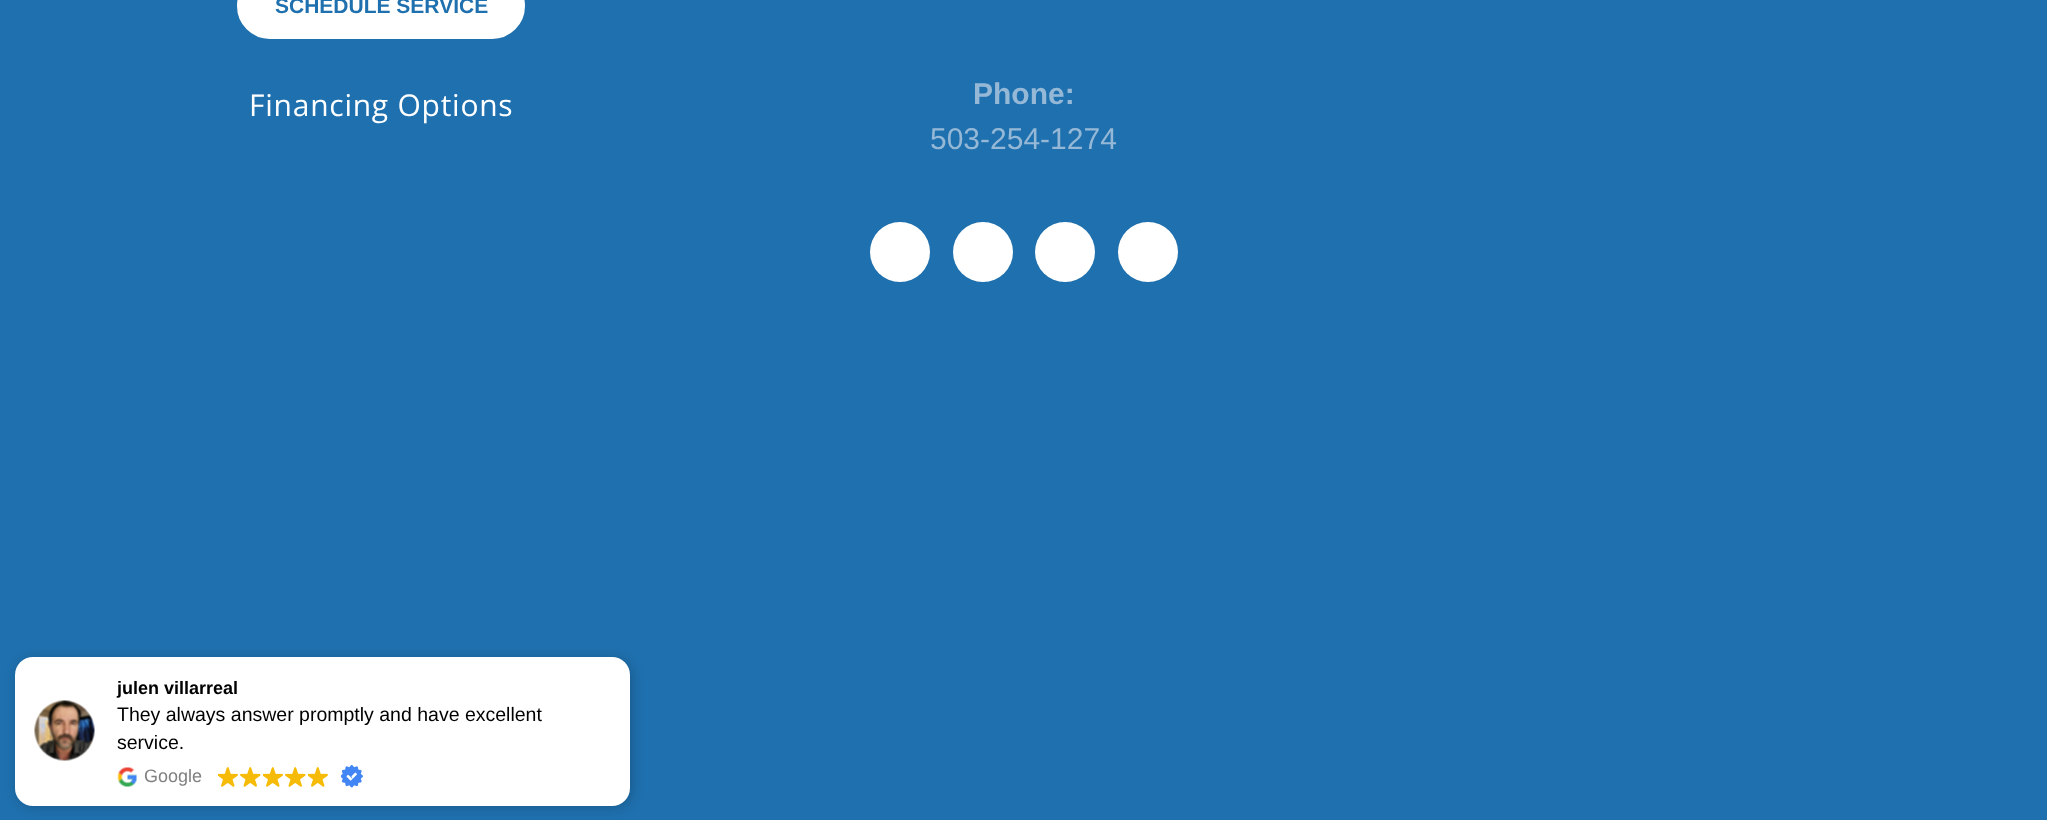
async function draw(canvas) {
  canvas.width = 2047;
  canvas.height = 820;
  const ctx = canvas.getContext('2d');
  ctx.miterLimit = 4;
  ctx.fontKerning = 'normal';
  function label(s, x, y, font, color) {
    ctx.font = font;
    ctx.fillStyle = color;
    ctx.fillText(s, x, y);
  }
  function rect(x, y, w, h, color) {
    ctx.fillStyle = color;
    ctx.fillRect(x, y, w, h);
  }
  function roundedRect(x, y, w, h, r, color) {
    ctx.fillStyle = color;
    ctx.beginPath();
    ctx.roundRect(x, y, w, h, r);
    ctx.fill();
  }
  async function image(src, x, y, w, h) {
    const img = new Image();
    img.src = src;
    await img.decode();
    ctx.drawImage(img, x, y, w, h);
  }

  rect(0, 0, 2047, 820, '#1f70ae');
  ctx.fillStyle = '#fff';
  ctx.beginPath();
  ctx.roundRect(238, -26, 286, 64, 32);
  ctx.fill();
  ctx.strokeStyle = '#fff';
  ctx.lineWidth = 2;
  ctx.stroke();
  label('SCHEDULE SERVICE', 275, 13, 'bold 21px Liberation Sans', '#1f70ae');
  ctx.letterSpacing = '0.75px';
  label('Financing Options', 249, 116, '30px Open Sans', '#fff');
  ctx.letterSpacing = '0px';
  label('Phone:', 973, 104, 'bold 30px Liberation Sans', '#95b8d7');
  label('503-254-1274', 930, 149, '30px Liberation Sans', '#95b8d7');
  ctx.fillStyle = '#fff';
  ctx.beginPath();
  ctx.arc(900, 252, 30, 0, 2 * Math.PI);
  ctx.fill();
  ctx.beginPath();
  ctx.arc(983, 252, 30, 0, 2 * Math.PI);
  ctx.fill();
  ctx.beginPath();
  ctx.arc(1065, 252, 30, 0, 2 * Math.PI);
  ctx.fill();
  ctx.beginPath();
  ctx.arc(1148, 252, 30, 0, 2 * Math.PI);
  ctx.fill();
  ctx.fillStyle = '#00000033';
  ctx.filter = 'blur(6px)';
  ctx.beginPath();
  ctx.roundRect(17, 659, 615, 148, 18);
  ctx.fill();
  ctx.filter = 'none';
  roundedRect(15, 657, 615, 149, 18, '#fff');
  await image('assets/img1.png', 34, 700, 61, 61);
  label('julen villarreal', 117, 694, 'bold 18px Liberation Sans', '#000');
  label('They always answer promptly and have excellent', 117, 721, '19.5px Liberation Sans', '#000');
  label('service.', 117, 749, '19.5px Liberation Sans', '#000');
  await image('assets/img2.png', 117, 767, 21, 21);
  label('Google', 144, 782, '18px Liberation Sans', '#808080');
  await image('assets/img3.png', 218, 767, 20, 20);
  await image('assets/img4.png', 240, 767, 21, 20);
  await image('assets/img3.png', 263, 767, 20, 20);
  await image('assets/img4.png', 285, 767, 21, 20);
  await image('assets/img3.png', 308, 767, 20, 20);
  await image('assets/img5.png', 341, 765, 22, 23);
}

draw(document.querySelector('canvas'));
